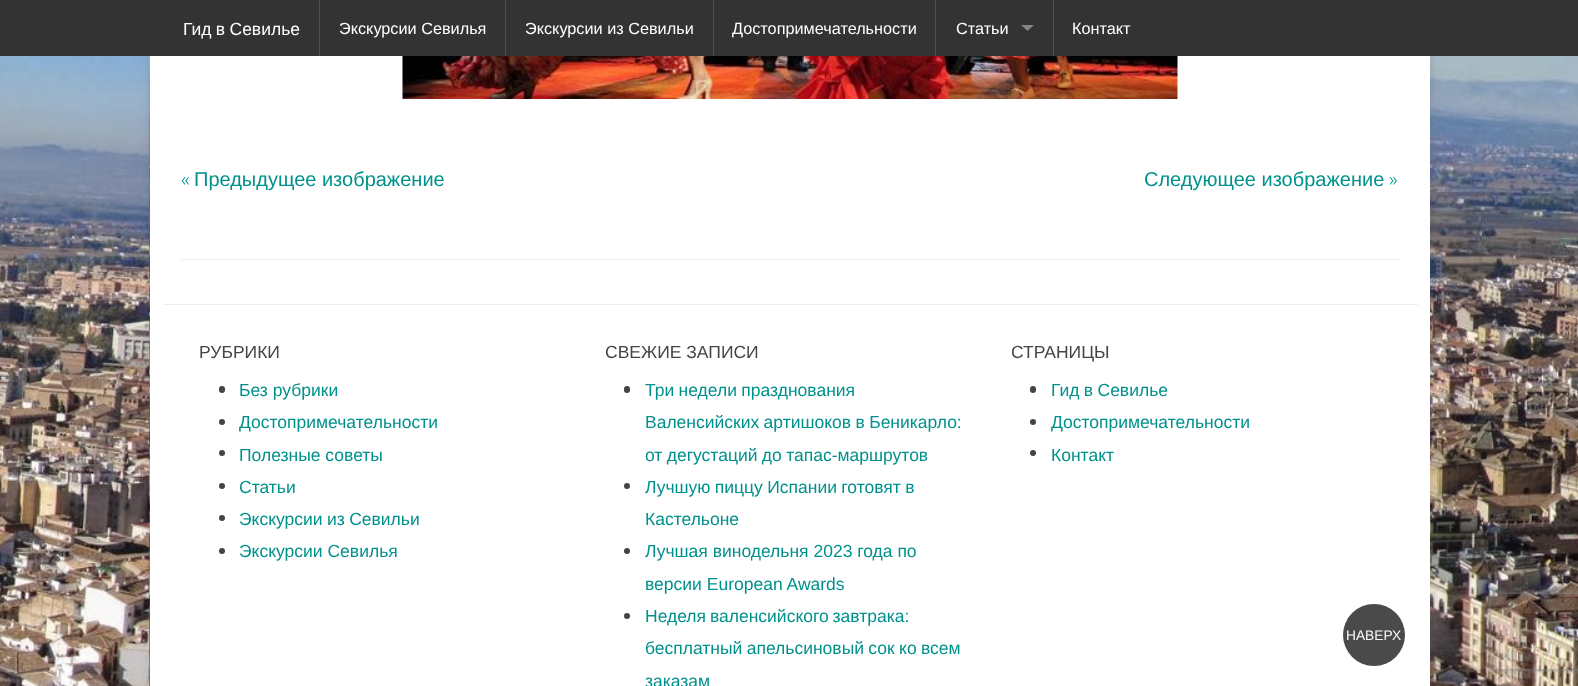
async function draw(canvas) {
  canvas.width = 1578;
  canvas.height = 686;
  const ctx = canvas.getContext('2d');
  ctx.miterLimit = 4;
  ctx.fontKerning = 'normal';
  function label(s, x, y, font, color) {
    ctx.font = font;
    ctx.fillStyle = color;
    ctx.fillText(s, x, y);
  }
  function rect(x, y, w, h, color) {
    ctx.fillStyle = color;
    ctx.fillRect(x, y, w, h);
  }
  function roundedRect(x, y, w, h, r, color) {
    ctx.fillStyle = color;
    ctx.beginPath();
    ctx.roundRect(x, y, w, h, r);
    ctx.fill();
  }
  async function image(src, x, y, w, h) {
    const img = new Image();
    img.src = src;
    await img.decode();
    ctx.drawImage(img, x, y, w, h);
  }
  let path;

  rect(0, 0, 1578, 686, '#fff');
  await image('assets/img1.png', 0, 56, 1578, 630);
  ctx.fillStyle = '#6464644d';
  ctx.filter = 'blur(4px)';
  ctx.beginPath();
  ctx.rect(150, -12, 1280, 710);
  ctx.fill();
  ctx.filter = 'none';
  rect(150, 56, 1280, 630, '#fff');
  rect(0, 0, 1578, 56, '#333');
  ctx.wordSpacing = '-0.5px';
  label('Гид в Севилье', 183, 35, '17.5px Liberation Sans', '#fff');
  rect(319, 0, 1, 56, '#4e4e4e');
  ctx.wordSpacing = '0px';
  label('Экскурсии Севилья', 339, 34, '16.25px Liberation Sans', '#fff');
  rect(505, 0, 1, 56, '#4e4e4e');
  label('Экскурсии из Севильи', 525, 34, '16.25px Liberation Sans', '#fff');
  rect(713, 0, 1, 56, '#4e4e4e');
  label('Достопримечательности', 732, 34, '16.25px Liberation Sans', '#fff');
  rect(935, 0, 1, 56, '#4e4e4e');
  label('Статьи', 956, 34, '16.25px Liberation Sans', '#fff');
  ctx.fillStyle = '#858585';
  path = new Path2D('M1021 25H1034L1027.5 31Z');
  ctx.fill(path);
  rect(1053, 0, 1, 56, '#4e4e4e');
  label('Контакт', 1072, 34, '16.25px Liberation Sans', '#fff');
  rect(181, 259, 1218, 1, '#ededed');
  await image('assets/img2.png', 402, 56, 776, 43);
  label('«', 181, 186, '300 20px Open Sans', '#00918c');
  label('Предыдущее изображение', 194, 186, '20px Liberation Sans', '#00918c');
  label('Следующее изображение', 1144, 186, '20px Liberation Sans', '#00918c');
  label('»', 1389, 186, '300 20px Open Sans', '#00918c');
  rect(163, 304, 1255, 1, '#ededed');
  label('РУБРИКИ', 199, 358, '17.5px Liberation Sans', '#444');
  roundedRect(219, 386, 6, 7, 3, '#444');
  label('Без рубрики', 239, 396, '17.5px Liberation Sans', '#00918c');
  ctx.fillStyle = '#444';
  ctx.beginPath();
  ctx.arc(222, 422, 3, 0, 2 * Math.PI);
  ctx.fill();
  label('Достопримечательности', 239, 428, '17.5px Liberation Sans', '#00918c');
  ctx.fillStyle = '#444';
  ctx.beginPath();
  ctx.arc(222, 453, 3, 0, 2 * Math.PI);
  ctx.fill();
  label('Полезные советы', 239, 461, '17.5px Liberation Sans', '#00918c');
  ctx.fillStyle = '#444';
  ctx.beginPath();
  ctx.arc(222, 486, 3, 0, 2 * Math.PI);
  ctx.fill();
  label('Статьи', 239, 493, '17.5px Liberation Sans', '#00918c');
  ctx.fillStyle = '#444';
  ctx.beginPath();
  ctx.arc(222, 518, 3, 0, 2 * Math.PI);
  ctx.fill();
  ctx.wordSpacing = '-0.5px';
  label('Экскурсии из Севильи', 239, 525, '17.5px Liberation Sans', '#00918c');
  ctx.fillStyle = '#444';
  ctx.beginPath();
  ctx.arc(222, 551, 3, 0, 2 * Math.PI);
  ctx.fill();
  ctx.wordSpacing = '0px';
  label('Экскурсии Севилья', 239, 557, '17.5px Liberation Sans', '#00918c');
  label('СВЕЖИЕ ЗАПИСИ', 605, 358, '17.5px Liberation Sans', '#444');
  roundedRect(624, 386, 6, 7, 3, '#444');
  ctx.wordSpacing = '-0.5px';
  label('Три недели празднования', 645, 396, '17.5px Liberation Sans', '#00918c');
  label('Валенсийских артишоков в Беникарло:', 645, 428, '17.5px Liberation Sans', '#00918c');
  label('от дегустаций до тапас-маршрутов', 645, 461, '17.5px Liberation Sans', '#00918c');
  ctx.fillStyle = '#444';
  ctx.beginPath();
  ctx.arc(627, 486, 3, 0, 2 * Math.PI);
  ctx.fill();
  label('Лучшую пиццу Испании готовят в', 645, 493, '17.5px Liberation Sans', '#00918c');
  ctx.wordSpacing = '0px';
  label('Кастельоне', 645, 525, '17.5px Liberation Sans', '#00918c');
  ctx.fillStyle = '#444';
  ctx.beginPath();
  ctx.arc(627, 551, 3, 0, 2 * Math.PI);
  ctx.fill();
  label('Лучшая винодельня 2023 года по', 645, 557, '17.5px Liberation Sans', '#00918c');
  label('версии European Awards', 645, 590, '17.5px Liberation Sans', '#00918c');
  ctx.fillStyle = '#444';
  ctx.beginPath();
  ctx.arc(627, 616, 3, 0, 2 * Math.PI);
  ctx.fill();
  ctx.wordSpacing = '-1px';
  label('Неделя валенсийского завтрака:', 645, 622, '17.5px Liberation Sans', '#00918c');
  ctx.wordSpacing = '-0.5px';
  label('бесплатный апельсиновый сок ко всем', 645, 654, '17.5px Liberation Sans', '#00918c');
  ctx.wordSpacing = '0px';
  label('заказам', 645, 687, '17.5px Liberation Sans', '#00918c');
  label('СТРАНИЦЫ', 1011, 358, '17.5px Liberation Sans', '#444');
  roundedRect(1030, 386, 6, 7, 3, '#444');
  ctx.wordSpacing = '-0.5px';
  label('Гид в Севилье', 1051, 396, '17.5px Liberation Sans', '#00918c');
  ctx.fillStyle = '#444';
  ctx.beginPath();
  ctx.arc(1033, 422, 3, 0, 2 * Math.PI);
  ctx.fill();
  ctx.wordSpacing = '0px';
  label('Достопримечательности', 1051, 428, '17.5px Liberation Sans', '#00918c');
  ctx.fillStyle = '#444';
  ctx.beginPath();
  ctx.arc(1033, 453, 3, 0, 2 * Math.PI);
  ctx.fill();
  label('Контакт', 1051, 461, '17.5px Liberation Sans', '#00918c');
  ctx.save();
  path = new Path2D('M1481 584H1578V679H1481ZM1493.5 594H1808.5C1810 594 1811 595 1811 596.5V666.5C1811 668 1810 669 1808.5 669H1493.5C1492 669 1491 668 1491 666.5V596.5C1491 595 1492 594 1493.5 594Z');
  ctx.clip(path, 'evenodd');
  ctx.fillStyle = '#808080';
  ctx.filter = 'blur(3px)';
  ctx.beginPath();
  ctx.roundRect(1491, 594, 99, 75, 2.5);
  ctx.fill();
  ctx.filter = 'none';
  ctx.restore();
  ctx.fillStyle = '#4a4a4a';
  ctx.beginPath();
  ctx.arc(1374, 635, 31, 0, 2 * Math.PI);
  ctx.fill();
  label('НАВЕРХ', 1346, 640, '13.75px Liberation Sans', '#f9f9f9');
}

draw(document.querySelector('canvas'));
